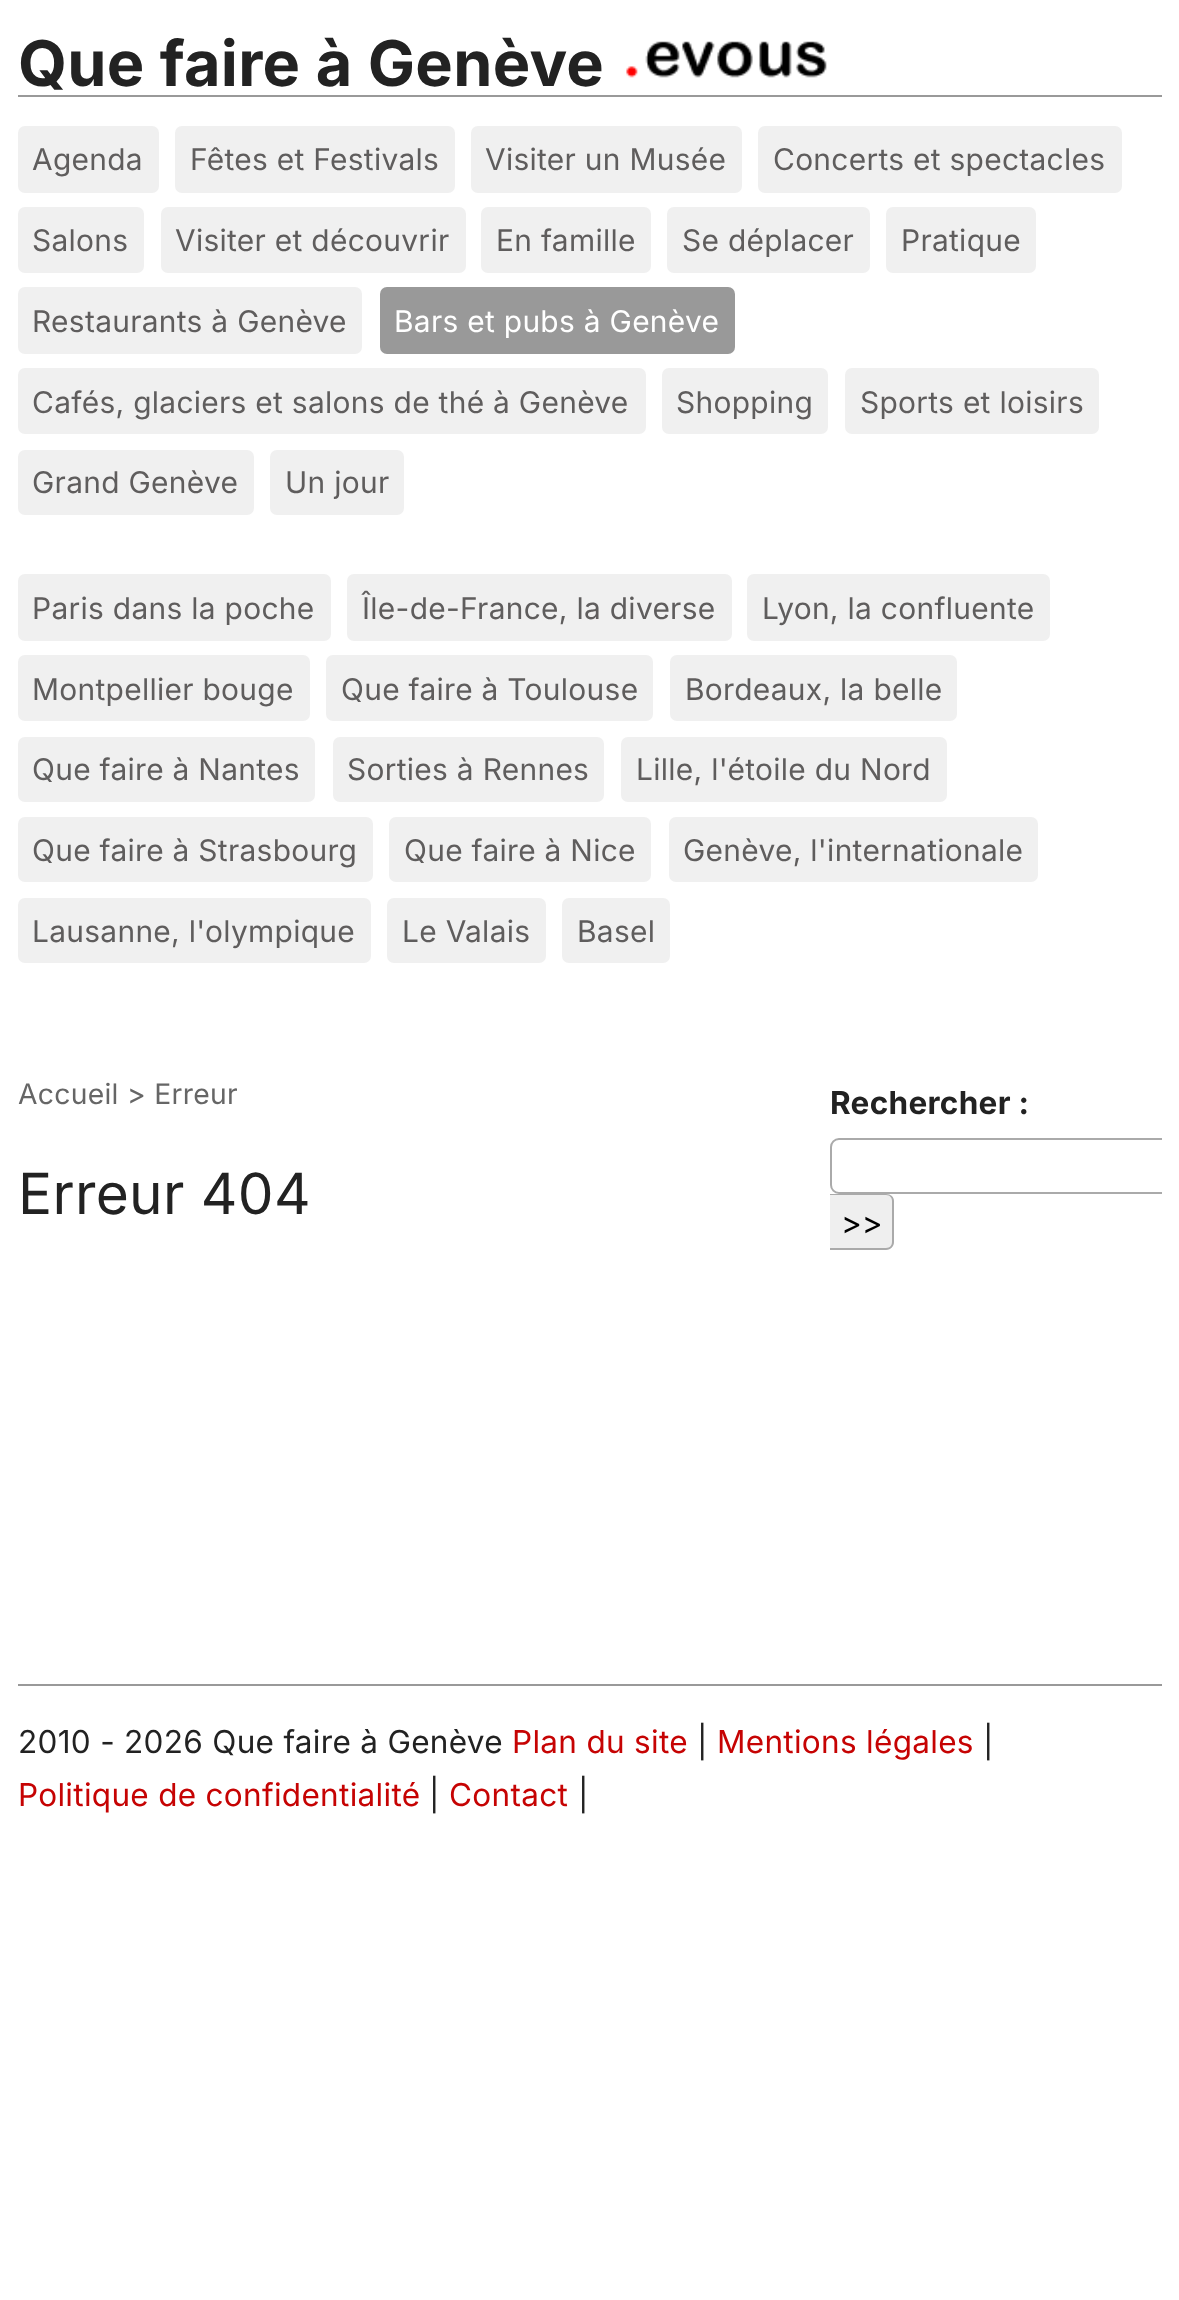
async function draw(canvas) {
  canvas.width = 1179;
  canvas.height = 2300;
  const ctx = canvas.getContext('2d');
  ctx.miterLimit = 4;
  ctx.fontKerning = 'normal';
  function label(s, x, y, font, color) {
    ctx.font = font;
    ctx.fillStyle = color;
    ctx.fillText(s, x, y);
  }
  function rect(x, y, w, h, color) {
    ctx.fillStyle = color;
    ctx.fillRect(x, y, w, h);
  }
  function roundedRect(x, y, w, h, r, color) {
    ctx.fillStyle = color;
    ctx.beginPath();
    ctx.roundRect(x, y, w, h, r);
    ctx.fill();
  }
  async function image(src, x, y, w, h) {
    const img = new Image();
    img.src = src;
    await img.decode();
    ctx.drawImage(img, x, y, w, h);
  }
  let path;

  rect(0, 0, 1179, 2300, '#fff');
  ctx.letterSpacing = '0.3px';
  label('Que faire à Genève', 18, 86, 'bold 63px Inter', '#222');
  await image('assets/img1.png', 626, 41, 201, 37);
  rect(18, 95, 1144, 2, '#999');
  roundedRect(18, 126, 141, 67, 7, '#f0f0f0');
  label('Agenda', 32, 170, '29.9px Inter', '#5f5d5d');
  roundedRect(175, 126, 280, 67, 7, '#f0f0f0');
  label('Fêtes et Festivals', 190, 170, '29.9px Inter', '#5f5d5d');
  roundedRect(471, 126, 271, 67, 7, '#f0f0f0');
  label('Visiter un Musée', 485, 170, '29.9px Inter', '#5f5d5d');
  roundedRect(758, 126, 364, 67, 7, '#f0f0f0');
  label('Concerts et spectacles', 773, 170, '29.9px Inter', '#5f5d5d');
  roundedRect(18, 207, 126, 66, 7, '#f0f0f0');
  label('Salons', 32, 251, '29.9px Inter', '#5f5d5d');
  roundedRect(161, 207, 305, 66, 7, '#f0f0f0');
  label('Visiter et découvrir', 175, 251, '29.9px Inter', '#5f5d5d');
  roundedRect(481, 207, 170, 66, 7, '#f0f0f0');
  label('En famille', 496, 251, '29.9px Inter', '#5f5d5d');
  roundedRect(667, 207, 203, 66, 7, '#f0f0f0');
  label('Se déplacer', 682, 251, '29.9px Inter', '#5f5d5d');
  roundedRect(886, 207, 150, 66, 7, '#f0f0f0');
  label('Pratique', 901, 251, '29.9px Inter', '#5f5d5d');
  roundedRect(18, 287, 344, 67, 7, '#f0f0f0');
  label('Restaurants à Genève', 32, 332, '29.9px Inter', '#5f5d5d');
  roundedRect(380, 287, 355, 67, 7, '#999');
  label('Bars et pubs à Genève', 394, 332, '29.9px Inter', '#fff');
  roundedRect(18, 368, 628, 66, 7, '#f0f0f0');
  label('Cafés, glaciers et salons de thé à Genève', 32, 413, '29.9px Inter', '#5f5d5d');
  roundedRect(662, 368, 166, 66, 7, '#f0f0f0');
  label('Shopping', 676, 413, '29.9px Inter', '#5f5d5d');
  roundedRect(845, 368, 254, 66, 7, '#f0f0f0');
  label('Sports et loisirs', 860, 413, '29.9px Inter', '#5f5d5d');
  roundedRect(18, 450, 236, 65, 7, '#f0f0f0');
  label('Grand Genève', 32, 493, '29.9px Inter', '#5f5d5d');
  roundedRect(270, 450, 134, 65, 7, '#f0f0f0');
  label('Un jour', 285, 493, '29.9px Inter', '#5f5d5d');
  roundedRect(18, 574, 313, 67, 7, '#f0f0f0');
  label('Paris dans la poche', 32, 619, '29.9px Inter', '#5f5d5d');
  roundedRect(347, 574, 385, 67, 7, '#f0f0f0');
  label('Île-de-France, la diverse', 362, 619, '29.9px Inter', '#5f5d5d');
  roundedRect(747, 574, 303, 67, 7, '#f0f0f0');
  label('Lyon, la confluente', 762, 619, '29.9px Inter', '#5f5d5d');
  roundedRect(18, 655, 292, 66, 7, '#f0f0f0');
  label('Montpellier bouge', 32, 700, '29.9px Inter', '#5f5d5d');
  roundedRect(326, 655, 327, 66, 7, '#f0f0f0');
  label('Que faire à Toulouse', 341, 700, '29.9px Inter', '#5f5d5d');
  roundedRect(670, 655, 287, 66, 7, '#f0f0f0');
  label('Bordeaux, la belle', 685, 700, '29.9px Inter', '#5f5d5d');
  roundedRect(18, 737, 297, 65, 7, '#f0f0f0');
  label('Que faire à Nantes', 32, 780, '29.9px Inter', '#5f5d5d');
  roundedRect(333, 737, 271, 65, 7, '#f0f0f0');
  label('Sorties à Rennes', 347, 780, '29.9px Inter', '#5f5d5d');
  roundedRect(621, 737, 326, 65, 7, '#f0f0f0');
  label('Lille, l\'étoile du Nord', 636, 780, '29.9px Inter', '#5f5d5d');
  roundedRect(18, 817, 355, 65, 7, '#f0f0f0');
  label('Que faire à Strasbourg', 32, 861, '29.9px Inter', '#5f5d5d');
  roundedRect(389, 817, 262, 65, 7, '#f0f0f0');
  label('Que faire à Nice', 404, 861, '29.9px Inter', '#5f5d5d');
  roundedRect(669, 817, 369, 65, 7, '#f0f0f0');
  label('Genève, l\'internationale', 683, 861, '29.9px Inter', '#5f5d5d');
  roundedRect(18, 898, 353, 65, 7, '#f0f0f0');
  label('Lausanne, l\'olympique', 32, 942, '29.9px Inter', '#5f5d5d');
  roundedRect(387, 898, 159, 65, 7, '#f0f0f0');
  label('Le Valais', 402, 942, '29.9px Inter', '#5f5d5d');
  roundedRect(562, 898, 108, 65, 7, '#f0f0f0');
  label('Basel', 577, 942, '29.9px Inter', '#5f5d5d');
  label('Accueil > Erreur', 18, 1104, '28.25px Inter', '#666');
  label('Erreur 404', 18, 1214, '56.75px Inter', '#222');
  label('Rechercher :', 830, 1114, 'bold 31.5px Inter', '#222');
  ctx.save();
  ctx.beginPath();
  ctx.rect(830, 1071, 332, 226);
  ctx.clip();
  ctx.beginPath();
  ctx.roundRect(831, 1139, 339, 54, [8, 0, 0, 8]);
  ctx.strokeStyle = '#aaa';
  ctx.lineWidth = 2;
  ctx.stroke();
  ctx.restore();
  ctx.fillStyle = '#efefef';
  ctx.beginPath();
  ctx.roundRect(830, 1194, 64, 56, [0, 9, 9, 0]);
  ctx.fill();
  ctx.fillStyle = '#aaa';
  path = new Path2D('M830 1194H886C891 1194 894 1197 894 1201V1242C894 1246 891 1250 886 1250H830ZM830 1195H886C890 1195 892 1198 892 1201V1242C892 1245 890 1248 886 1248H830Z');
  ctx.fill(path, 'evenodd');
  ctx.letterSpacing = '0px';
  label('>>', 841, 1234, '31.5px Inter', '#000');
  rect(18, 1684, 1144, 2, '#999');
  ctx.letterSpacing = '0.3px';
  label('2010 - 2026 Que faire à Genève', 18, 1753, '31.5px Inter', '#222');
  label('Plan du site', 512, 1753, '31.5px Inter', '#c60303');
  label('|', 697, 1753, '31.5px Inter', '#222');
  label('Mentions légales', 717, 1753, '31.5px Inter', '#c60303');
  label('|', 983, 1753, '31.5px Inter', '#222');
  label('Politique de confidentialité', 18, 1806, '31.5px Inter', '#c60303');
  label('|', 429, 1806, '31.5px Inter', '#222');
  label('Contact', 449, 1806, '31.5px Inter', '#c60303');
  label('|', 578, 1806, '31.5px Inter', '#222');
}

draw(document.querySelector('canvas'));
